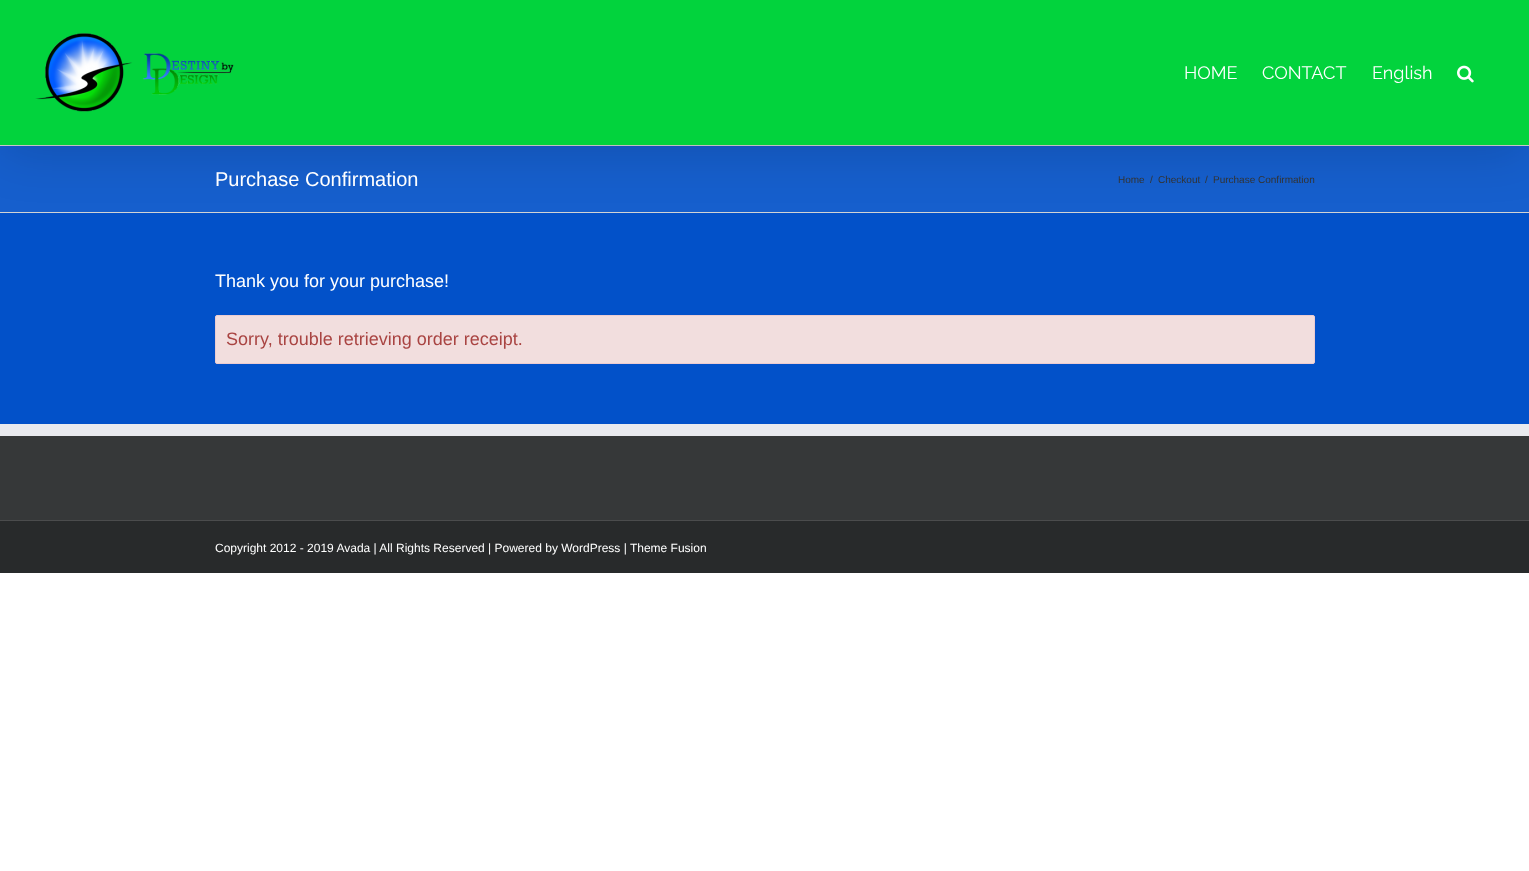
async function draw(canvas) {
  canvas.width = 1529;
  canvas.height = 871;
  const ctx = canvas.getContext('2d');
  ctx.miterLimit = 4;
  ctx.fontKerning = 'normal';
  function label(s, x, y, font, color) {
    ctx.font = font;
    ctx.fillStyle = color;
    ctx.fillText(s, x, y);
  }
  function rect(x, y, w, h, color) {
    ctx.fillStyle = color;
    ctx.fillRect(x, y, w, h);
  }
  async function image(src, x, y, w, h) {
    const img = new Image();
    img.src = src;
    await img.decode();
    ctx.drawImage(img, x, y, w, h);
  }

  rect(0, 0, 1529, 871, '#fff');
  rect(0, 213, 1529, 211, '#0251c9');
  rect(0, 146, 1529, 66, '#165fcd');
  rect(0, 145, 1529, 1, '#d2d3d4');
  rect(0, 212, 1529, 1, '#d2d3d4');
  ctx.fillStyle = '#00000024';
  ctx.filter = 'blur(25px)';
  ctx.beginPath();
  ctx.rect(2, 12, 1525, 141);
  ctx.fill();
  ctx.filter = 'none';
  rect(0, 0, 1529, 145, '#02d33d');
  await image('assets/img1.png', 35, 33, 199, 79);
  label('HOME', 1184, 79, '18px Raleway', '#fff');
  label('CONTACT', 1262, 79, '18px Raleway', '#fff');
  label('English', 1372, 79, '18px Raleway', '#fff');
  await image('assets/img2.png', 1457, 65, 17, 18);
  label('Purchase Confirmation', 215, 186, '20px Liberation Sans', '#fff');
  label('Home', 1118, 183, '10px Liberation Sans', '#333');
  label('/', 1150, 183, '10px Liberation Sans', '#333');
  label('Checkout', 1158, 183, '10px Liberation Sans', '#333');
  label('/', 1205, 183, '10px Liberation Sans', '#333');
  label('Purchase Confirmation', 1213, 183, '10px Liberation Sans', '#333');
  label('Thank you for your purchase!', 215, 287, '18px Liberation Sans', '#fff');
  ctx.fillStyle = '#f2dede';
  ctx.beginPath();
  ctx.roundRect(215.5, 315.5, 1099, 48, 1.5);
  ctx.fill();
  ctx.strokeStyle = '#ebccd1';
  ctx.stroke();
  label('Sorry, trouble retrieving order receipt.', 226, 345, '18px Liberation Sans', '#a94442');
  rect(0, 436, 1529, 84, '#363839');
  rect(0, 424, 1529, 12, '#e9eaee');
  rect(0, 521, 1529, 52, '#282a2b');
  rect(0, 520, 1529, 1, '#4b4c4d');
  label('Copyright 2012 - 2019 Avada | All Rights Reserved | Powered by WordPress | Theme Fusion', 215, 552, '12px Liberation Sans', '#fff');
}

draw(document.querySelector('canvas'));
